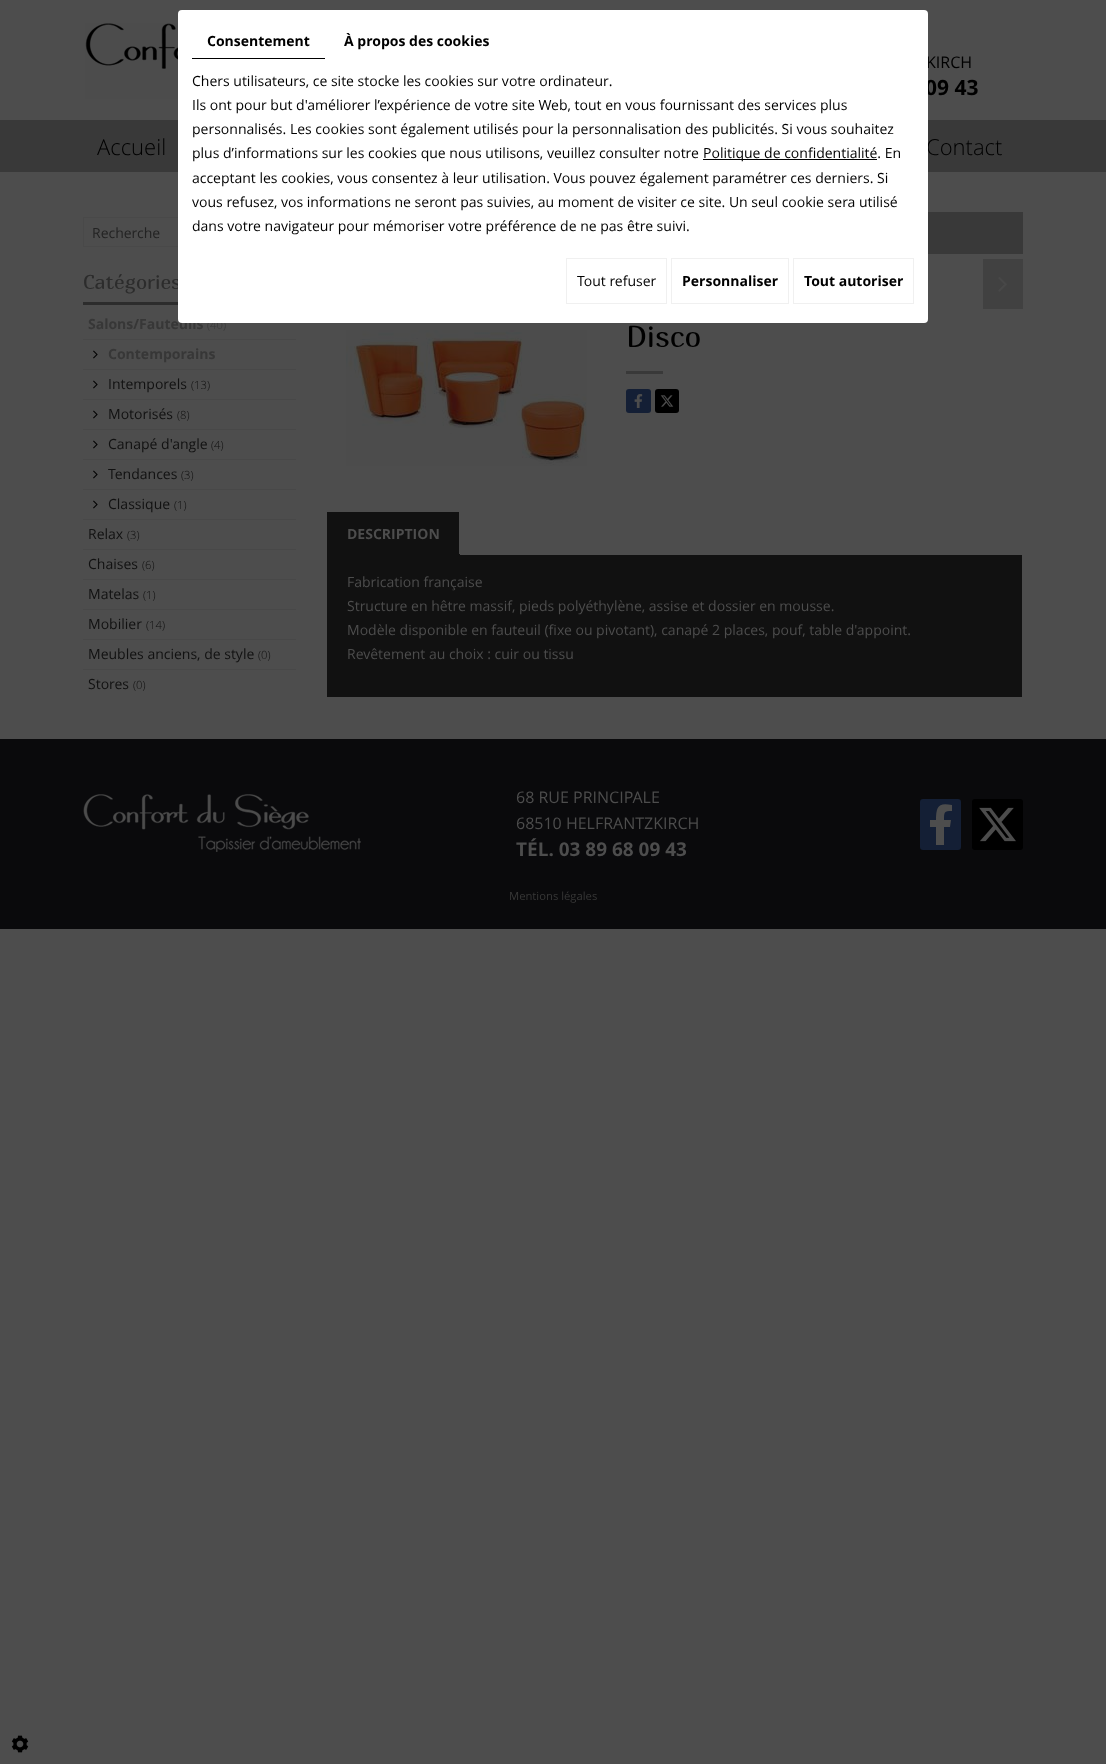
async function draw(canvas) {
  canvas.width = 1106;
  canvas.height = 1764;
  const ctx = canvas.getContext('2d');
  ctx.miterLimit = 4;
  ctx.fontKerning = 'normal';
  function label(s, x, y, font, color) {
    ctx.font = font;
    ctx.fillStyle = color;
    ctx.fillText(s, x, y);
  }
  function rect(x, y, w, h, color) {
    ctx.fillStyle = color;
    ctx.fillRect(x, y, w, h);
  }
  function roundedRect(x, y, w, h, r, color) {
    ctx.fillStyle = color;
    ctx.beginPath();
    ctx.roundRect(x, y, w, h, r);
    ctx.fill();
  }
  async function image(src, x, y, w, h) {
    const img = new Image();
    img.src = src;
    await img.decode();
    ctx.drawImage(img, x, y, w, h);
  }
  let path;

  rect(0, 0, 1106, 1764, '#4d4d4d');
  label('KIRCH', 926, 68, '16px Open Sans', '#000');
  label('09 43', 925, 95, 'bold 21px Open Sans', '#000');
  rect(0, 120, 1106, 52, '#393939');
  label('Contact', 926, 155, '300 22px Open Sans', '#000');
  ctx.strokeStyle = '#494949';
  ctx.strokeRect(83.5, 217.5, 212, 29);
  label('Catégories', 83, 289, '20px Marmelad', '#2c2c2c');
  label('Salons/Fauteuils', 88, 329, 'bold 14px Open Sans', '#373737');
  label('(40)', 207, 329, '300 11.25px Open Sans', '#373737');
  roundedRect(178, 10, 750, 313, 4, '#fff');
  rect(192, 58, 133, 1, '#000');
  label('Consentement', 207, 46, 'bold 14px Open Sans', '#000');
  label('À propos des cookies', 344, 46, 'bold 14px Open Sans', '#000');
  label('Chers utilisateurs, ce site stocke les cookies sur votre ordinateur.', 192, 86, '14px Open Sans', '#000');
  label('Ils ont pour but d\'améliorer l’expérience de votre site Web, tout en vous fournissant des services plus', 192, 110, '14px Open Sans', '#000');
  label('personnalisés. Les cookies sont également utilisés pour la personnalisation des publicités. Si vous souhaitez', 192, 134, '14px Open Sans', '#000');
  label('plus d’informations sur les cookies que nous utilisons, veuillez consulter notre', 192, 158, '14px Open Sans', '#000');
  rect(703, 159, 174, 1, '#000');
  label('Politique de confidentialité. En', 703, 158, '14px Open Sans', '#000');
  label('acceptant les cookies, vous consentez à leur utilisation. Vous pouvez également paramétrer ces derniers. Si', 192, 183, '14px Open Sans', '#000');
  label('vous refusez, vos informations ne seront pas suivies, au moment de visiter ce site. Un seul cookie sera utilisé', 192, 207, '14px Open Sans', '#000');
  label('dans votre navigateur pour mémoriser votre préférence de ne pas être suivi.', 192, 231, '14px Open Sans', '#000');
  ctx.strokeStyle = '#f0f0f0';
  ctx.strokeRect(566.5, 258.5, 100, 45);
  label('Tout refuser', 577, 286, '14px Open Sans', '#000');
  ctx.strokeRect(671.5, 258.5, 117, 45);
  label('Personnaliser', 682, 286, 'bold 14px Open Sans', '#000');
  ctx.strokeRect(793.5, 258.5, 120, 45);
  label('Tout autoriser', 804, 286, 'bold 14px Open Sans', '#000');
  await image('assets/img1.png', 85, 23, 93, 76);
  label('Accueil', 97, 155, '300 22px Open Sans', '#000');
  label('Recherche', 92, 238, '14px Open Sans', '#232323');
  rect(83, 302, 95, 3, '#2c2c2c');
  rect(83, 339, 213, 1, '#484848');
  await image('assets/img2.png', 93, 350, 5, 9);
  label('Contemporains', 108, 359, 'bold 14px Open Sans', '#373737');
  rect(83, 369, 213, 1, '#484848');
  await image('assets/img2.png', 93, 380, 5, 9);
  label('Intemporels', 108, 389, '14px Open Sans', '#111');
  label('(13)', 191, 389, '300 11.25px Open Sans', '#111');
  rect(83, 399, 213, 1, '#484848');
  await image('assets/img2.png', 93, 410, 5, 9);
  label('Motorisés', 108, 419, '14px Open Sans', '#111');
  label('(8)', 177, 419, '300 11.25px Open Sans', '#111');
  rect(83, 429, 213, 1, '#484848');
  await image('assets/img2.png', 93, 440, 5, 9);
  label('Canapé d\'angle', 108, 449, '14px Open Sans', '#111');
  label('(4)', 211, 449, '300 11.25px Open Sans', '#111');
  rect(83, 459, 213, 1, '#484848');
  await image('assets/img2.png', 93, 470, 5, 9);
  label('Tendances', 108, 479, '14px Open Sans', '#111');
  label('(3)', 181, 479, '300 11.25px Open Sans', '#111');
  rect(83, 489, 213, 1, '#484848');
  await image('assets/img2.png', 93, 500, 5, 9);
  label('Classique', 108, 509, '14px Open Sans', '#111');
  label('(1)', 174, 509, '300 11.25px Open Sans', '#111');
  rect(83, 519, 213, 1, '#484848');
  label('Relax', 88, 539, '14px Open Sans', '#111');
  label('(3)', 127, 539, '300 11.25px Open Sans', '#111');
  rect(83, 549, 213, 1, '#484848');
  label('Chaises', 88, 569, '14px Open Sans', '#111');
  label('(6)', 142, 569, '300 11.25px Open Sans', '#111');
  rect(83, 579, 213, 1, '#484848');
  label('Matelas', 88, 599, '14px Open Sans', '#111');
  label('(1)', 143, 599, '300 11.25px Open Sans', '#111');
  rect(83, 609, 213, 1, '#484848');
  label('Mobilier', 88, 629, '14px Open Sans', '#111');
  label('(14)', 146, 629, '300 11.25px Open Sans', '#111');
  rect(83, 639, 213, 1, '#484848');
  label('Meubles anciens, de style', 88, 659, '14px Open Sans', '#111');
  label('(0)', 258, 659, '300 11.25px Open Sans', '#111');
  rect(83, 669, 213, 1, '#484848');
  label('Stores', 88, 689, '14px Open Sans', '#111');
  label('(0)', 133, 689, '300 11.25px Open Sans', '#111');
  rect(928, 212, 95, 42, '#393939');
  rect(983, 259, 40, 50, '#414141');
  await image('assets/img3.png', 998, 277, 9, 15);
  await image('assets/img4.png', 346, 330, 241, 136);
  label('Disco', 626, 347, '30px Marmelad', '#000');
  rect(626, 371, 37, 3, '#393939');
  roundedRect(626, 389, 25, 24, 3, '#141f35');
  await image('assets/img5.png', 634, 394, 9, 14);
  roundedRect(655, 389, 24, 24, 3, '#000');
  await image('assets/img6.png', 660, 395, 14, 12);
  rect(327, 512, 132, 42, '#111');
  rect(326, 554, 134, 1, '#111');
  rect(326, 554, 1, 1, '#4d4d4d');
  label('DESCRIPTION', 347, 539, 'bold 14px Open Sans', '#4d4d4d');
  rect(327, 555, 695, 142, '#111');
  label('Fabrication française', 347, 587, '14px Open Sans', '#4d4d4d');
  label('Structure en hêtre massif, pieds polyéthylène, assise et dossier en mousse.', 347, 611, '14px Open Sans', '#4d4d4d');
  label('Modèle disponible en fauteuil (fixe ou pivotant), canapé 2 places, pouf, table d\'appoint.', 347, 635, '14px Open Sans', '#4d4d4d');
  label('Revêtement au choix : cuir ou tissu', 347, 659, '14px Open Sans', '#4d4d4d');
  rect(0, 739, 1106, 190, '#0a0a0c');
  await image('assets/img7.png', 83, 794, 278, 58);
  label('68 RUE PRINCIPALE', 516, 803, '16px Open Sans', '#4d4d4d');
  label('68510 HELFRANTZKIRCH', 516, 829, '16px Open Sans', '#4d4d4d');
  label('TÉL. 03 89 68 09 43', 516, 856, 'bold 19px Open Sans', '#4d4d4d');
  roundedRect(920, 799, 41, 51, 3, '#141f35');
  ctx.fillStyle = '#4d4d4d';
  path = new Path2D('M950 827L951 820H944C944 812 944 811 952 811V805C938 802 936 807 936 820H930V827H936V845H944V827Z');
  ctx.fill(path);
  roundedRect(972, 799, 51, 51, 3, '#000');
  await image('assets/img8.png', 979, 807, 37, 35);
  label('Mentions légales', 509, 900, '11.25px Open Sans', '#373737');
  await image('assets/img9.png', 11, 1735, 18, 18);
}

draw(document.querySelector('canvas'));
